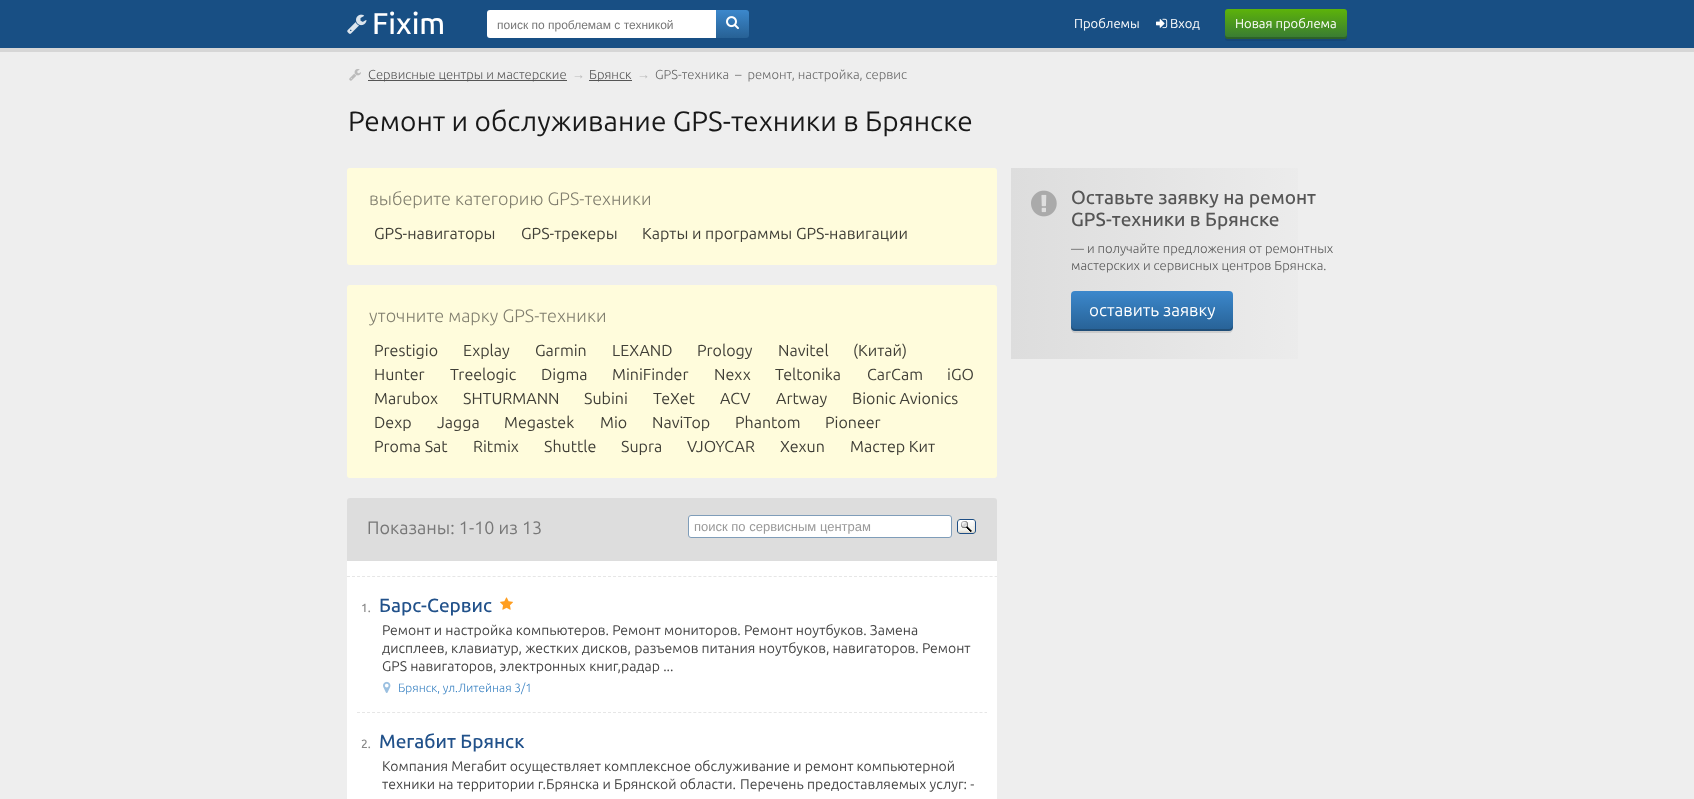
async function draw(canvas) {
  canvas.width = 1694;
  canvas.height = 799;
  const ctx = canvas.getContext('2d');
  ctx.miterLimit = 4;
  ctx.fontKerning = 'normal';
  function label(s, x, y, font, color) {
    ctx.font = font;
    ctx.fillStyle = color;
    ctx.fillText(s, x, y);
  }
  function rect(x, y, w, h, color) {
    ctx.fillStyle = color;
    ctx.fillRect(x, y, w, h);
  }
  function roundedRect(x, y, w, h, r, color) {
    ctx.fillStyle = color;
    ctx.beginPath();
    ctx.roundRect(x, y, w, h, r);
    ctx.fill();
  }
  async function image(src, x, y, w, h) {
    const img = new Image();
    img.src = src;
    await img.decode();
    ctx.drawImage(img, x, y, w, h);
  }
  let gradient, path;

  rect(0, 0, 1694, 799, '#eee');
  rect(0, 48, 1694, 4, '#d6d6d6');
  rect(0, 0, 1694, 48, '#184f84');
  await image('assets/img1.png', 347, 14, 20, 20);
  label('Fixim', 372, 34, '500 30px Ubuntu', '#fff');
  roundedRect(487, 10, 234, 28, 3, '#fff');
  label('поиск по проблемам с техникой', 497, 29, '12px Liberation Sans', '#777');
  gradient = ctx.createLinearGradient(733, 10, 733, 38);
  gradient.addColorStop(0, '#3c88cc');
  gradient.addColorStop(1, '#276195');
  ctx.fillStyle = gradient;
  ctx.beginPath();
  ctx.roundRect(716, 10, 33, 28, [0, 3, 3, 0]);
  ctx.fill();
  await image('assets/img2.png', 726, 16, 13, 14);
  label('Проблемы', 1074, 28, '13px Ubuntu', '#fff');
  await image('assets/img3.png', 1156, 18, 12, 11);
  label('Вход', 1170, 28, '13px Ubuntu', '#fff');
  ctx.fillStyle = '#164777';
  path = new Path2D('M1225 36V38C1225 40 1226 41 1228 41H1344C1346 41 1347 40 1347 38V36L1346 38L1344 39H1228C1226 39 1225 38 1225 36Z');
  ctx.fill(path);
  gradient = ctx.createLinearGradient(1286, 9, 1286, 39);
  gradient.addColorStop(0, '#5db30a');
  gradient.addColorStop(1, '#377935');
  ctx.fillStyle = gradient;
  ctx.beginPath();
  ctx.roundRect(1225, 9, 122, 30, 3);
  ctx.fill();
  ctx.fillStyle = '#00000033';
  path = new Path2D('M1225 34V36C1225 38 1226 39 1228 39H1344C1346 39 1347 38 1347 36V34C1347 36 1346 37 1344 37H1228C1226 37 1225 36 1225 34Z');
  ctx.fill(path);
  label('Новая проблема', 1235, 28, '13px Ubuntu', '#fff');
  await image('assets/img4.png', 349, 69, 12, 12);
  rect(368, 80, 199, 1, '#555');
  label('Сервисные центры и мастерские', 368, 79, '300 13px Ubuntu', '#555');
  label('→', 572, 79, '13px Liberation Sans', '#bbb');
  rect(589, 80, 43, 1, '#555');
  label('Брянск', 589, 79, '300 13px Ubuntu', '#555');
  label('→', 637, 79, '13px Liberation Sans', '#bbb');
  label('GPS-техника  –  ремонт, настройка, сервис', 655, 79, '300 13px Ubuntu', '#666');
  label('Ремонт и обслуживание GPS-техники в Брянске', 348, 131, '28px Ubuntu', '#181818');
  roundedRect(347, 168, 650, 97, 3, '#fffcdc');
  label('выберите категорию GPS-техники', 369, 205, '300 18px Ubuntu', '#807e6e');
  label('GPS-навигаторы', 374, 239, '16px Ubuntu', '#403f37');
  label('GPS-трекеры', 521, 239, '16px Ubuntu', '#403f37');
  label('Карты и программы GPS-навигации', 642, 239, '16px Ubuntu', '#403f37');
  roundedRect(347, 285, 650, 193, 3, '#fffcdc');
  label('уточните марку GPS-техники', 369, 322, '300 18px Ubuntu', '#807e6e');
  label('Prestigio', 374, 356, '16px Ubuntu', '#403f37');
  label('Explay', 463, 356, '16px Ubuntu', '#403f37');
  label('Garmin', 535, 356, '16px Ubuntu', '#403f37');
  label('LEXAND', 612, 356, '16px Ubuntu', '#403f37');
  label('Prology', 697, 356, '16px Ubuntu', '#403f37');
  label('Navitel', 778, 356, '16px Ubuntu', '#403f37');
  label('(Китай)', 853, 356, '16px Ubuntu', '#403f37');
  label('Hunter', 374, 380, '16px Ubuntu', '#403f37');
  label('Treelogic', 450, 380, '16px Ubuntu', '#403f37');
  label('Digma', 541, 380, '16px Ubuntu', '#403f37');
  label('MiniFinder', 612, 380, '16px Ubuntu', '#403f37');
  label('Nexx', 714, 380, '16px Ubuntu', '#403f37');
  label('Teltonika', 775, 380, '16px Ubuntu', '#403f37');
  label('CarCam', 867, 380, '16px Ubuntu', '#403f37');
  label('iGO', 947, 380, '16px Ubuntu', '#403f37');
  label('Marubox', 374, 404, '16px Ubuntu', '#403f37');
  label('SHTURMANN', 463, 404, '16px Ubuntu', '#403f37');
  label('Subini', 584, 404, '16px Ubuntu', '#403f37');
  label('TeXet', 653, 404, '16px Ubuntu', '#403f37');
  label('ACV', 720, 404, '16px Ubuntu', '#403f37');
  label('Artway', 776, 404, '16px Ubuntu', '#403f37');
  label('Bionic Avionics', 852, 404, '16px Ubuntu', '#403f37');
  label('Dexp', 374, 428, '16px Ubuntu', '#403f37');
  label('Jagga', 437, 428, '16px Ubuntu', '#403f37');
  label('Megastek', 504, 428, '16px Ubuntu', '#403f37');
  label('Mio', 600, 428, '16px Ubuntu', '#403f37');
  label('NaviTop', 652, 428, '16px Ubuntu', '#403f37');
  label('Phantom', 735, 428, '16px Ubuntu', '#403f37');
  label('Pioneer', 825, 428, '16px Ubuntu', '#403f37');
  label('Proma Sat', 374, 452, '16px Ubuntu', '#403f37');
  label('Ritmix', 473, 452, '16px Ubuntu', '#403f37');
  label('Shuttle', 544, 452, '16px Ubuntu', '#403f37');
  label('Supra', 621, 452, '16px Ubuntu', '#403f37');
  label('VJOYCAR', 687, 452, '16px Ubuntu', '#403f37');
  label('Xexun', 780, 452, '16px Ubuntu', '#403f37');
  label('Мастер Кит', 850, 452, '16px Ubuntu', '#403f37');
  ctx.fillStyle = '#ddd';
  ctx.beginPath();
  ctx.roundRect(347, 498, 650, 63, [3, 3, 0, 0]);
  ctx.fill();
  label('Показаны: 1-10 из 13', 367, 534, '18px Ubuntu', '#777');
  ctx.fillStyle = '#fff';
  ctx.beginPath();
  ctx.roundRect(688.5, 515.5, 263, 22, 2.5);
  ctx.fill();
  ctx.strokeStyle = '#7f9db9';
  ctx.stroke();
  label('поиск по сервисным центрам', 694, 531, '13px Liberation Sans', '#999');
  await image('assets/img5.png', 957, 519, 19, 15);
  rect(347, 561, 650, 238, '#fff');
  path = new Path2D('M347 576.5H997');
  ctx.strokeStyle = '#e6e6e6';
  ctx.setLineDash([3, 2.02]);
  ctx.stroke(path);
  path = new Path2D('M357 712.5H987');
  ctx.stroke(path);
  label('1.', 361, 612, '500 12px Ubuntu', '#888');
  label('Барс-Сервис', 379, 612, '500 19px Ubuntu', '#21518a');
  await image('assets/img6.png', 500, 597, 13, 13);
  label('Ремонт и настройка компьютеров. Ремонт мониторов. Ремонт ноутбуков. Замена', 382, 635, '14px Ubuntu', '#444');
  label('дисплеев, клавиатур, жестких дисков, разъемов питания ноутбуков, навигаторов. Ремонт', 382, 653, '14px Ubuntu', '#444');
  label('GPS навигаторов, электронных книг,радар ...', 382, 671, '14px Ubuntu', '#444');
  await image('assets/img7.png', 383, 681, 8, 12);
  label('Брянск, ул.Литейная 3/1', 398, 692, '300 12px Ubuntu', '#3881c2');
  label('2.', 361, 748, '500 12px Ubuntu', '#888');
  label('Мегабит Брянск', 379, 748, '500 19px Ubuntu', '#21518a');
  label('Компания Мегабит осуществляет комплексное обслуживание и ремонт компьютерной', 382, 771, '14px Ubuntu', '#444');
  label('техники на территории г.Брянска и Брянской области.', 382, 789, '14px Ubuntu', '#444');
  label('Перечень предоставляемых услуг: -', 740, 789, '14px Ubuntu', '#444');
  gradient = ctx.createLinearGradient(1011, 264, 1347, 264);
  gradient.addColorStop(0, '#ddd');
  gradient.addColorStop(1, '#eee');
  ctx.fillStyle = gradient;
  ctx.fillRect(1011, 168, 287, 191);
  await image('assets/img8.png', 1031, 190, 26, 27);
  label('Оставьте заявку на ремонт', 1071, 204, '500 19px Ubuntu', '#555');
  label('GPS-техники в Брянске', 1071, 226, '500 19px Ubuntu', '#555');
  label('— и получайте предложения от ремонтных', 1071, 253, '300 13px Ubuntu', '#555');
  label('мастерских и сервисных центров Брянска.', 1071, 270, '300 13px Ubuntu', '#555');
  ctx.fillStyle = '#0000001a';
  path = new Path2D('M1071 327V329C1071 331 1073 333 1075 333H1229C1231 333 1233 331 1233 329V327L1232 330L1229 331H1075C1073 331 1071 329 1071 327Z');
  ctx.fill(path);
  gradient = ctx.createLinearGradient(1152, 291, 1152, 331);
  gradient.addColorStop(0, '#3c88cc');
  gradient.addColorStop(1, '#276195');
  ctx.fillStyle = gradient;
  ctx.beginPath();
  ctx.roundRect(1071, 291, 162, 40, 4);
  ctx.fill();
  ctx.fillStyle = '#00000033';
  path = new Path2D('M1071 325V327C1071 329 1073 331 1075 331H1229C1231 331 1233 329 1233 327V325C1233 327 1231 329 1229 329H1075C1073 329 1071 327 1071 325Z');
  ctx.fill(path);
  label('оставить заявку', 1089, 316, '17px Ubuntu', '#fff');
}

draw(document.querySelector('canvas'));
